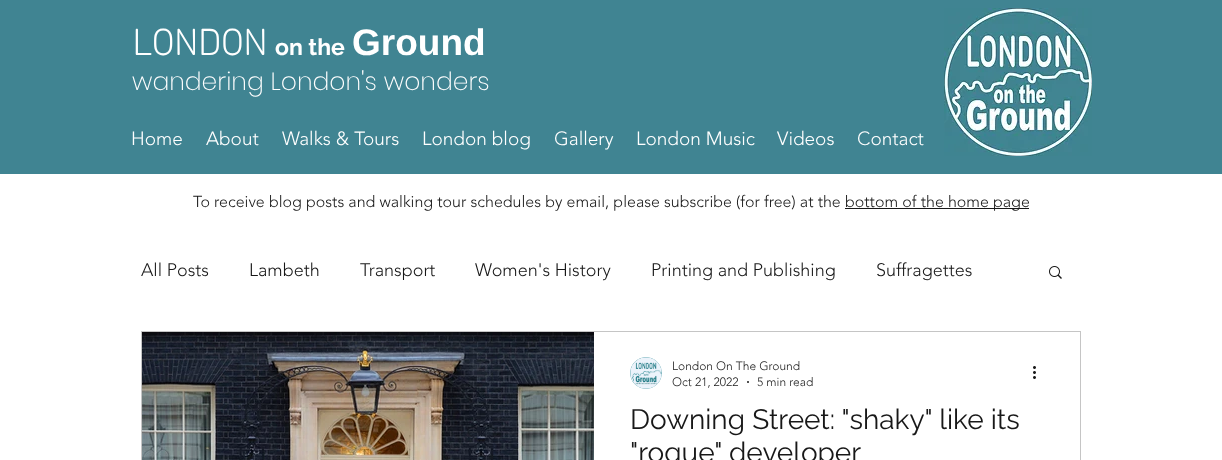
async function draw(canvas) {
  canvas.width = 1222;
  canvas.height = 460;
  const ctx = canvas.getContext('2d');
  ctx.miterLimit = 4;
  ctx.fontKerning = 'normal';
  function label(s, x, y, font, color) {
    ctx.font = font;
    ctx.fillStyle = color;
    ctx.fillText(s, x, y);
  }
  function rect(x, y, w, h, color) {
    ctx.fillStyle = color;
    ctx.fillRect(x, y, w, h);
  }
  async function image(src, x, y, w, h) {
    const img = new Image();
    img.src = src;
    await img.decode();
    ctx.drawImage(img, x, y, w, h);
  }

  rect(0, 0, 1222, 460, '#fff');
  rect(0, 0, 1222, 174, '#408492');
  label('LONDON', 132, 55, 'bold 37px "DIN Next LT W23"', '#fff');
  label('on the', 275, 55, 'bold 23px Raleway', '#fff');
  label('Ground', 352, 55, 'bold 37px Liberation Sans', '#fff');
  await image('assets/img1.png', 944, 8, 148, 148);
  label('wandering London\'s wonders', 132, 90, '200 25px Poppins', '#fff');
  label('Home', 131, 145, '300 19px "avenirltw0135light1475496"', '#fff');
  label('About', 206, 145, '300 19px "avenirltw0135light1475496"', '#fff');
  label('Walks & Tours', 282, 145, '300 19px "avenirltw0135light1475496"', '#fff');
  label('London blog', 422, 145, '300 19px "avenirltw0135light1475496"', '#fff');
  label('Gallery', 554, 145, '300 19px "avenirltw0135light1475496"', '#fff');
  label('London Music', 636, 145, '300 19px "avenirltw0135light1475496"', '#fff');
  label('Videos', 777, 145, '300 19px "avenirltw0135light1475496"', '#fff');
  label('Contact', 857, 145, '300 19px "avenirltw0135light1475496"', '#fff');
  label('To receive blog posts and walking tour schedules by email, please subscribe (for free) at the', 193, 207, '300 16px "avenirltw0135light1475496"', '#181818');
  rect(845, 208, 184, 1, '#181818');
  label('bottom of the home page', 845, 207, '300 16px "avenirltw0135light1475496"', '#181818');
  label('All Posts', 141, 276, '300 18px "avenirltw0135light1475496"', '#181818');
  label('Lambeth', 249, 276, '300 18px "avenirltw0135light1475496"', '#181818');
  label('Transport', 360, 276, '300 18px "avenirltw0135light1475496"', '#181818');
  label('Women\'s History', 475, 276, '300 18px "avenirltw0135light1475496"', '#181818');
  label('Printing and Publishing', 651, 276, '300 18px "avenirltw0135light1475496"', '#181818');
  label('Suffragettes', 876, 276, '300 18px "avenirltw0135light1475496"', '#181818');
  await image('assets/img2.png', 1049, 266, 13, 13);
  ctx.strokeStyle = '#c5c5c5';
  ctx.strokeRect(141.5, 331.5, 939, 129);
  await image('assets/img3.png', 142, 332, 452, 128);
  await image('assets/img4.png', 630, 357, 32, 32);
  label('London On The Ground', 672, 370, '300 12px "avenirltw0135light1475496"', '#181818');
  label('Oct 21, 2022', 672, 386, '300 12px "avenirltw0135light1475496"', '#181818');
  ctx.beginPath();
  ctx.arc(748, 382, 1, 0, 2 * Math.PI);
  ctx.fill();
  label('5 min read', 757, 386, '300 12px "avenirltw0135light1475496"', '#181818');
  await image('assets/img5.png', 1033, 366, 3, 13);
  label('Downing Street: "shaky" like its', 630, 429, '28px Raleway', '#181818');
  label('"rogue" developer', 630, 462, '28px Raleway', '#181818');
}

draw(document.querySelector('canvas'));
